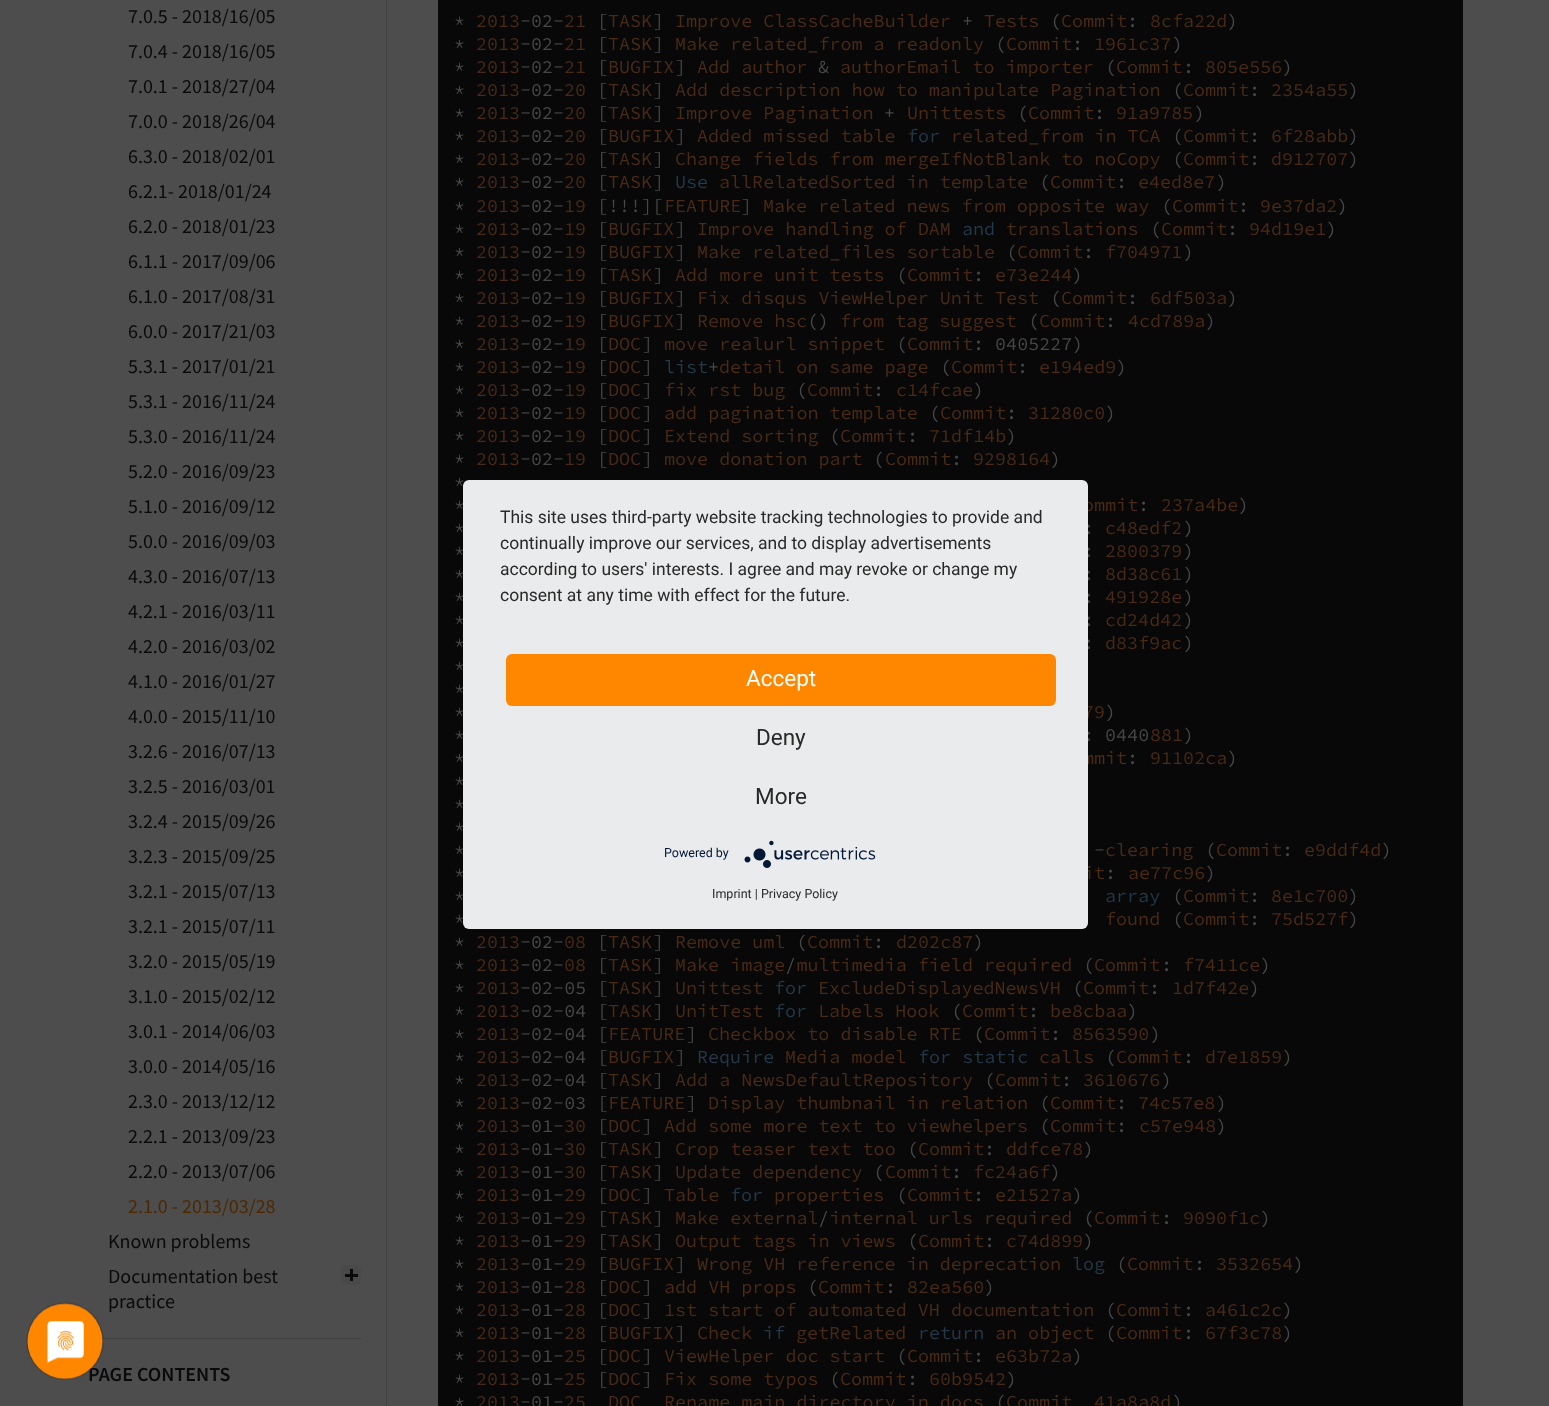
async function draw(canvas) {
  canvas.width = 1549;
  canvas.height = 1406;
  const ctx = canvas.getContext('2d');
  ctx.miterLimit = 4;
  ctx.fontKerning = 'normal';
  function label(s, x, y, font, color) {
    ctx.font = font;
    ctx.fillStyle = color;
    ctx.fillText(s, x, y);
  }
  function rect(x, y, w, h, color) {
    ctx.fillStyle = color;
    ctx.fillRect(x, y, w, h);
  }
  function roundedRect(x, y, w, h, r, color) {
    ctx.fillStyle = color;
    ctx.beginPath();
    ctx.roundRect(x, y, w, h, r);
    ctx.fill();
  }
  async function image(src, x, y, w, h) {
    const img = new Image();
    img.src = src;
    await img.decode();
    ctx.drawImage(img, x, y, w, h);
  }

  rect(0, 0, 1549, 1406, '#4d4d4d');
  rect(386, 0, 1, 1406, '#414141');
  rect(102, 1338, 259, 1, '#414141');
  label('7.0.5 - 2018/16/05', 128, 23, '20px Source Sans Pro', '#0a0a0a');
  label('7.0.4 - 2018/16/05', 128, 58, '20px Source Sans Pro', '#0a0a0a');
  label('7.0.1 - 2018/27/04', 128, 93, '20px Source Sans Pro', '#0a0a0a');
  label('7.0.0 - 2018/26/04', 128, 128, '20px Source Sans Pro', '#0a0a0a');
  label('6.3.0 - 2018/02/01', 128, 163, '20px Source Sans Pro', '#0a0a0a');
  label('6.2.1- 2018/01/24', 128, 198, '20px Source Sans Pro', '#0a0a0a');
  label('6.2.0 - 2018/01/23', 128, 233, '20px Source Sans Pro', '#0a0a0a');
  label('6.1.1 - 2017/09/06', 128, 268, '20px Source Sans Pro', '#0a0a0a');
  label('6.1.0 - 2017/08/31', 128, 303, '20px Source Sans Pro', '#0a0a0a');
  label('6.0.0 - 2017/21/03', 128, 338, '20px Source Sans Pro', '#0a0a0a');
  label('5.3.1 - 2017/01/21', 128, 373, '20px Source Sans Pro', '#0a0a0a');
  label('5.3.1 - 2016/11/24', 128, 408, '20px Source Sans Pro', '#0a0a0a');
  label('5.3.0 - 2016/11/24', 128, 443, '20px Source Sans Pro', '#0a0a0a');
  label('5.2.0 - 2016/09/23', 128, 478, '20px Source Sans Pro', '#0a0a0a');
  label('5.1.0 - 2016/09/12', 128, 513, '20px Source Sans Pro', '#0a0a0a');
  label('5.0.0 - 2016/09/03', 128, 548, '20px Source Sans Pro', '#0a0a0a');
  label('4.3.0 - 2016/07/13', 128, 583, '20px Source Sans Pro', '#0a0a0a');
  label('4.2.1 - 2016/03/11', 128, 618, '20px Source Sans Pro', '#0a0a0a');
  label('4.2.0 - 2016/03/02', 128, 653, '20px Source Sans Pro', '#0a0a0a');
  label('4.1.0 - 2016/01/27', 128, 688, '20px Source Sans Pro', '#0a0a0a');
  label('4.0.0 - 2015/11/10', 128, 723, '20px Source Sans Pro', '#0a0a0a');
  label('3.2.6 - 2016/07/13', 128, 758, '20px Source Sans Pro', '#0a0a0a');
  label('3.2.5 - 2016/03/01', 128, 793, '20px Source Sans Pro', '#0a0a0a');
  label('3.2.4 - 2015/09/26', 128, 828, '20px Source Sans Pro', '#0a0a0a');
  label('3.2.3 - 2015/09/25', 128, 863, '20px Source Sans Pro', '#0a0a0a');
  label('3.2.1 - 2015/07/13', 128, 898, '20px Source Sans Pro', '#0a0a0a');
  label('3.2.1 - 2015/07/11', 128, 933, '20px Source Sans Pro', '#0a0a0a');
  label('3.2.0 - 2015/05/19', 128, 968, '20px Source Sans Pro', '#0a0a0a');
  label('3.1.0 - 2015/02/12', 128, 1003, '20px Source Sans Pro', '#0a0a0a');
  label('3.0.1 - 2014/06/03', 128, 1038, '20px Source Sans Pro', '#0a0a0a');
  label('3.0.0 - 2014/05/16', 128, 1073, '20px Source Sans Pro', '#0a0a0a');
  label('2.3.0 - 2013/12/12', 128, 1108, '20px Source Sans Pro', '#0a0a0a');
  label('2.2.1 - 2013/09/23', 128, 1143, '20px Source Sans Pro', '#0a0a0a');
  label('2.2.0 - 2013/07/06', 128, 1178, '20px Source Sans Pro', '#0a0a0a');
  label('2.1.0 - 2013/03/28', 128, 1213, '20px Source Sans Pro', '#4d2900');
  label('Known problems', 108, 1248, '20px Source Sans Pro', '#0a0a0a');
  label('Documentation best', 108, 1283, '20px Source Sans Pro', '#0a0a0a');
  roundedRect(341, 1265, 20, 20, 5, '#494949');
  rect(350, 1269, 3, 12, '#0a0a0a');
  rect(345, 1274, 13, 3, '#0a0a0a');
  label('practice', 108, 1308, '20px Source Sans Pro', '#0a0a0a');
  label('PAGE CONTENTS', 88, 1381, '600 20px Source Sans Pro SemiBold', '#0a0a0a');
  rect(438, 0, 1025, 1406, '#080808');
  label('*', 454, 27, '200 18.4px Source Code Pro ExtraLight', '#474747');
  label('2013', 476, 27, '200 18.4px Source Code Pro ExtraLight', '#482a16');
  label('-02-', 520, 27, '200 18.4px Source Code Pro ExtraLight', '#474747');
  label('21', 564, 27, '200 18.4px Source Code Pro ExtraLight', '#482a16');
  label('[', 597, 27, '200 18.4px Source Code Pro ExtraLight', '#474747');
  label('TASK', 608, 27, '200 18.4px Source Code Pro ExtraLight', '#482a16');
  label(']', 653, 27, '200 18.4px Source Code Pro ExtraLight', '#474747');
  label('Improve ClassCacheBuilder', 675, 27, '200 18.4px Source Code Pro ExtraLight', '#482a16');
  label('+', 962, 27, '200 18.4px Source Code Pro ExtraLight', '#474747');
  label('Tests', 984, 27, '200 18.4px Source Code Pro ExtraLight', '#482a16');
  label('(', 1050, 27, '200 18.4px Source Code Pro ExtraLight', '#474747');
  label('Commit', 1061, 27, '200 18.4px Source Code Pro ExtraLight', '#482a16');
  label(':', 1127, 27, '200 18.4px Source Code Pro ExtraLight', '#474747');
  label('8cfa22d', 1150, 27, '200 18.4px Source Code Pro ExtraLight', '#482a16');
  label(')', 1227, 27, '200 18.4px Source Code Pro ExtraLight', '#474747');
  label('*', 454, 50, '200 18.4px Source Code Pro ExtraLight', '#474747');
  label('2013', 476, 50, '200 18.4px Source Code Pro ExtraLight', '#482a16');
  label('-02-', 520, 50, '200 18.4px Source Code Pro ExtraLight', '#474747');
  label('21', 564, 50, '200 18.4px Source Code Pro ExtraLight', '#482a16');
  label('[', 597, 50, '200 18.4px Source Code Pro ExtraLight', '#474747');
  label('TASK', 608, 50, '200 18.4px Source Code Pro ExtraLight', '#482a16');
  label(']', 653, 50, '200 18.4px Source Code Pro ExtraLight', '#474747');
  label('Make related_from a readonly', 675, 50, '200 18.4px Source Code Pro ExtraLight', '#482a16');
  label('(', 995, 50, '200 18.4px Source Code Pro ExtraLight', '#474747');
  label('Commit', 1006, 50, '200 18.4px Source Code Pro ExtraLight', '#482a16');
  label(':', 1072, 50, '200 18.4px Source Code Pro ExtraLight', '#474747');
  label('1961c37', 1094, 50, '200 18.4px Source Code Pro ExtraLight', '#482a16');
  label(')', 1172, 50, '200 18.4px Source Code Pro ExtraLight', '#474747');
  label('*', 454, 73, '200 18.4px Source Code Pro ExtraLight', '#474747');
  label('2013', 476, 73, '200 18.4px Source Code Pro ExtraLight', '#482a16');
  label('-02-', 520, 73, '200 18.4px Source Code Pro ExtraLight', '#474747');
  label('21', 564, 73, '200 18.4px Source Code Pro ExtraLight', '#482a16');
  label('[', 597, 73, '200 18.4px Source Code Pro ExtraLight', '#474747');
  label('BUGFIX', 608, 73, '200 18.4px Source Code Pro ExtraLight', '#482a16');
  label(']', 675, 73, '200 18.4px Source Code Pro ExtraLight', '#474747');
  label('Add author', 697, 73, '200 18.4px Source Code Pro ExtraLight', '#482a16');
  label('&', 818, 73, '200 18.4px Source Code Pro ExtraLight', '#474747');
  label('authorEmail to importer', 840, 73, '200 18.4px Source Code Pro ExtraLight', '#482a16');
  label('(', 1105, 73, '200 18.4px Source Code Pro ExtraLight', '#474747');
  label('Commit', 1116, 73, '200 18.4px Source Code Pro ExtraLight', '#482a16');
  label(':', 1183, 73, '200 18.4px Source Code Pro ExtraLight', '#474747');
  label('805e556', 1205, 73, '200 18.4px Source Code Pro ExtraLight', '#482a16');
  label(')', 1282, 73, '200 18.4px Source Code Pro ExtraLight', '#474747');
  label('*', 454, 96, '200 18.4px Source Code Pro ExtraLight', '#474747');
  label('2013', 476, 96, '200 18.4px Source Code Pro ExtraLight', '#482a16');
  label('-02-', 520, 96, '200 18.4px Source Code Pro ExtraLight', '#474747');
  label('20', 564, 96, '200 18.4px Source Code Pro ExtraLight', '#482a16');
  label('[', 597, 96, '200 18.4px Source Code Pro ExtraLight', '#474747');
  label('TASK', 608, 96, '200 18.4px Source Code Pro ExtraLight', '#482a16');
  label(']', 653, 96, '200 18.4px Source Code Pro ExtraLight', '#474747');
  label('Add description how to manipulate Pagination', 675, 96, '200 18.4px Source Code Pro ExtraLight', '#482a16');
  label('(', 1172, 96, '200 18.4px Source Code Pro ExtraLight', '#474747');
  label('Commit', 1183, 96, '200 18.4px Source Code Pro ExtraLight', '#482a16');
  label(':', 1249, 96, '200 18.4px Source Code Pro ExtraLight', '#474747');
  label('2354a55', 1271, 96, '200 18.4px Source Code Pro ExtraLight', '#482a16');
  label(')', 1348, 96, '200 18.4px Source Code Pro ExtraLight', '#474747');
  label('*', 454, 119, '200 18.4px Source Code Pro ExtraLight', '#474747');
  label('2013', 476, 119, '200 18.4px Source Code Pro ExtraLight', '#482a16');
  label('-02-', 520, 119, '200 18.4px Source Code Pro ExtraLight', '#474747');
  label('20', 564, 119, '200 18.4px Source Code Pro ExtraLight', '#482a16');
  label('[', 597, 119, '200 18.4px Source Code Pro ExtraLight', '#474747');
  label('TASK', 608, 119, '200 18.4px Source Code Pro ExtraLight', '#482a16');
  label(']', 653, 119, '200 18.4px Source Code Pro ExtraLight', '#474747');
  label('Improve Pagination', 675, 119, '200 18.4px Source Code Pro ExtraLight', '#482a16');
  label('+', 884, 119, '200 18.4px Source Code Pro ExtraLight', '#474747');
  label('Unittests', 907, 119, '200 18.4px Source Code Pro ExtraLight', '#482a16');
  label('(', 1017, 119, '200 18.4px Source Code Pro ExtraLight', '#474747');
  label('Commit', 1028, 119, '200 18.4px Source Code Pro ExtraLight', '#482a16');
  label(':', 1094, 119, '200 18.4px Source Code Pro ExtraLight', '#474747');
  label('91a9785', 1116, 119, '200 18.4px Source Code Pro ExtraLight', '#482a16');
  label(')', 1194, 119, '200 18.4px Source Code Pro ExtraLight', '#474747');
  label('*', 454, 142, '200 18.4px Source Code Pro ExtraLight', '#474747');
  label('2013', 476, 142, '200 18.4px Source Code Pro ExtraLight', '#482a16');
  label('-02-', 520, 142, '200 18.4px Source Code Pro ExtraLight', '#474747');
  label('20', 564, 142, '200 18.4px Source Code Pro ExtraLight', '#482a16');
  label('[', 597, 142, '200 18.4px Source Code Pro ExtraLight', '#474747');
  label('BUGFIX', 608, 142, '200 18.4px Source Code Pro ExtraLight', '#482a16');
  label(']', 675, 142, '200 18.4px Source Code Pro ExtraLight', '#474747');
  label('Added missed table', 697, 142, '200 18.4px Source Code Pro ExtraLight', '#482a16');
  label('for', 907, 142, '200 18.4px Source Code Pro ExtraLight', '#233848');
  label('related_from in TCA', 951, 142, '200 18.4px Source Code Pro ExtraLight', '#482a16');
  label('(', 1172, 142, '200 18.4px Source Code Pro ExtraLight', '#474747');
  label('Commit', 1183, 142, '200 18.4px Source Code Pro ExtraLight', '#482a16');
  label(':', 1249, 142, '200 18.4px Source Code Pro ExtraLight', '#474747');
  label('6f28abb', 1271, 142, '200 18.4px Source Code Pro ExtraLight', '#482a16');
  label(')', 1348, 142, '200 18.4px Source Code Pro ExtraLight', '#474747');
  label('*', 454, 165, '200 18.4px Source Code Pro ExtraLight', '#474747');
  label('2013', 476, 165, '200 18.4px Source Code Pro ExtraLight', '#482a16');
  label('-02-', 520, 165, '200 18.4px Source Code Pro ExtraLight', '#474747');
  label('20', 564, 165, '200 18.4px Source Code Pro ExtraLight', '#482a16');
  label('[', 597, 165, '200 18.4px Source Code Pro ExtraLight', '#474747');
  label('TASK', 608, 165, '200 18.4px Source Code Pro ExtraLight', '#482a16');
  label(']', 653, 165, '200 18.4px Source Code Pro ExtraLight', '#474747');
  label('Change fields from mergeIfNotBlank to noCopy', 675, 165, '200 18.4px Source Code Pro ExtraLight', '#482a16');
  label('(', 1172, 165, '200 18.4px Source Code Pro ExtraLight', '#474747');
  label('Commit', 1183, 165, '200 18.4px Source Code Pro ExtraLight', '#482a16');
  label(':', 1249, 165, '200 18.4px Source Code Pro ExtraLight', '#474747');
  label('d912707', 1271, 165, '200 18.4px Source Code Pro ExtraLight', '#482a16');
  label(')', 1348, 165, '200 18.4px Source Code Pro ExtraLight', '#474747');
  label('*', 454, 188, '200 18.4px Source Code Pro ExtraLight', '#474747');
  label('2013', 476, 188, '200 18.4px Source Code Pro ExtraLight', '#482a16');
  label('-02-', 520, 188, '200 18.4px Source Code Pro ExtraLight', '#474747');
  label('20', 564, 188, '200 18.4px Source Code Pro ExtraLight', '#482a16');
  label('[', 597, 188, '200 18.4px Source Code Pro ExtraLight', '#474747');
  label('TASK', 608, 188, '200 18.4px Source Code Pro ExtraLight', '#482a16');
  label(']', 653, 188, '200 18.4px Source Code Pro ExtraLight', '#474747');
  label('Use', 675, 188, '200 18.4px Source Code Pro ExtraLight', '#233848');
  label('allRelatedSorted in template', 719, 188, '200 18.4px Source Code Pro ExtraLight', '#482a16');
  label('(', 1039, 188, '200 18.4px Source Code Pro ExtraLight', '#474747');
  label('Commit', 1050, 188, '200 18.4px Source Code Pro ExtraLight', '#482a16');
  label(':', 1116, 188, '200 18.4px Source Code Pro ExtraLight', '#474747');
  label('e4ed8e7', 1138, 188, '200 18.4px Source Code Pro ExtraLight', '#482a16');
  label(')', 1216, 188, '200 18.4px Source Code Pro ExtraLight', '#474747');
  label('*', 454, 212, '200 18.4px Source Code Pro ExtraLight', '#474747');
  label('2013', 476, 212, '200 18.4px Source Code Pro ExtraLight', '#482a16');
  label('-02-', 520, 212, '200 18.4px Source Code Pro ExtraLight', '#474747');
  label('19', 564, 212, '200 18.4px Source Code Pro ExtraLight', '#482a16');
  label('[!!!][', 597, 212, '200 18.4px Source Code Pro ExtraLight', '#474747');
  label('FEATURE', 664, 212, '200 18.4px Source Code Pro ExtraLight', '#482a16');
  label(']', 741, 212, '200 18.4px Source Code Pro ExtraLight', '#474747');
  label('Make related news from opposite way', 763, 212, '200 18.4px Source Code Pro ExtraLight', '#482a16');
  label('(', 1161, 212, '200 18.4px Source Code Pro ExtraLight', '#474747');
  label('Commit', 1172, 212, '200 18.4px Source Code Pro ExtraLight', '#482a16');
  label(':', 1238, 212, '200 18.4px Source Code Pro ExtraLight', '#474747');
  label('9e37da2', 1260, 212, '200 18.4px Source Code Pro ExtraLight', '#482a16');
  label(')', 1337, 212, '200 18.4px Source Code Pro ExtraLight', '#474747');
  label('*', 454, 235, '200 18.4px Source Code Pro ExtraLight', '#474747');
  label('2013', 476, 235, '200 18.4px Source Code Pro ExtraLight', '#482a16');
  label('-02-', 520, 235, '200 18.4px Source Code Pro ExtraLight', '#474747');
  label('19', 564, 235, '200 18.4px Source Code Pro ExtraLight', '#482a16');
  label('[', 597, 235, '200 18.4px Source Code Pro ExtraLight', '#474747');
  label('BUGFIX', 608, 235, '200 18.4px Source Code Pro ExtraLight', '#482a16');
  label(']', 675, 235, '200 18.4px Source Code Pro ExtraLight', '#474747');
  label('Improve handling of DAM', 697, 235, '200 18.4px Source Code Pro ExtraLight', '#482a16');
  label('and', 962, 235, '200 18.4px Source Code Pro ExtraLight', '#233848');
  label('translations', 1006, 235, '200 18.4px Source Code Pro ExtraLight', '#482a16');
  label('(', 1150, 235, '200 18.4px Source Code Pro ExtraLight', '#474747');
  label('Commit', 1161, 235, '200 18.4px Source Code Pro ExtraLight', '#482a16');
  label(':', 1227, 235, '200 18.4px Source Code Pro ExtraLight', '#474747');
  label('94d19e1', 1249, 235, '200 18.4px Source Code Pro ExtraLight', '#482a16');
  label(')', 1326, 235, '200 18.4px Source Code Pro ExtraLight', '#474747');
  label('*', 454, 258, '200 18.4px Source Code Pro ExtraLight', '#474747');
  label('2013', 476, 258, '200 18.4px Source Code Pro ExtraLight', '#482a16');
  label('-02-', 520, 258, '200 18.4px Source Code Pro ExtraLight', '#474747');
  label('19', 564, 258, '200 18.4px Source Code Pro ExtraLight', '#482a16');
  label('[', 597, 258, '200 18.4px Source Code Pro ExtraLight', '#474747');
  label('BUGFIX', 608, 258, '200 18.4px Source Code Pro ExtraLight', '#482a16');
  label(']', 675, 258, '200 18.4px Source Code Pro ExtraLight', '#474747');
  label('Make related_files sortable', 697, 258, '200 18.4px Source Code Pro ExtraLight', '#482a16');
  label('(', 1006, 258, '200 18.4px Source Code Pro ExtraLight', '#474747');
  label('Commit', 1017, 258, '200 18.4px Source Code Pro ExtraLight', '#482a16');
  label(':', 1083, 258, '200 18.4px Source Code Pro ExtraLight', '#474747');
  label('f704971', 1105, 258, '200 18.4px Source Code Pro ExtraLight', '#482a16');
  label(')', 1183, 258, '200 18.4px Source Code Pro ExtraLight', '#474747');
  label('*', 454, 281, '200 18.4px Source Code Pro ExtraLight', '#474747');
  label('2013', 476, 281, '200 18.4px Source Code Pro ExtraLight', '#482a16');
  label('-02-', 520, 281, '200 18.4px Source Code Pro ExtraLight', '#474747');
  label('19', 564, 281, '200 18.4px Source Code Pro ExtraLight', '#482a16');
  label('[', 597, 281, '200 18.4px Source Code Pro ExtraLight', '#474747');
  label('TASK', 608, 281, '200 18.4px Source Code Pro ExtraLight', '#482a16');
  label(']', 653, 281, '200 18.4px Source Code Pro ExtraLight', '#474747');
  label('Add more unit tests', 675, 281, '200 18.4px Source Code Pro ExtraLight', '#482a16');
  label('(', 896, 281, '200 18.4px Source Code Pro ExtraLight', '#474747');
  label('Commit', 907, 281, '200 18.4px Source Code Pro ExtraLight', '#482a16');
  label(':', 973, 281, '200 18.4px Source Code Pro ExtraLight', '#474747');
  label('e73e244', 995, 281, '200 18.4px Source Code Pro ExtraLight', '#482a16');
  label(')', 1072, 281, '200 18.4px Source Code Pro ExtraLight', '#474747');
  label('*', 454, 304, '200 18.4px Source Code Pro ExtraLight', '#474747');
  label('2013', 476, 304, '200 18.4px Source Code Pro ExtraLight', '#482a16');
  label('-02-', 520, 304, '200 18.4px Source Code Pro ExtraLight', '#474747');
  label('19', 564, 304, '200 18.4px Source Code Pro ExtraLight', '#482a16');
  label('[', 597, 304, '200 18.4px Source Code Pro ExtraLight', '#474747');
  label('BUGFIX', 608, 304, '200 18.4px Source Code Pro ExtraLight', '#482a16');
  label(']', 675, 304, '200 18.4px Source Code Pro ExtraLight', '#474747');
  label('Fix disqus ViewHelper Unit Test', 697, 304, '200 18.4px Source Code Pro ExtraLight', '#482a16');
  label('(', 1050, 304, '200 18.4px Source Code Pro ExtraLight', '#474747');
  label('Commit', 1061, 304, '200 18.4px Source Code Pro ExtraLight', '#482a16');
  label(':', 1127, 304, '200 18.4px Source Code Pro ExtraLight', '#474747');
  label('6df503a', 1150, 304, '200 18.4px Source Code Pro ExtraLight', '#482a16');
  label(')', 1227, 304, '200 18.4px Source Code Pro ExtraLight', '#474747');
  label('*', 454, 327, '200 18.4px Source Code Pro ExtraLight', '#474747');
  label('2013', 476, 327, '200 18.4px Source Code Pro ExtraLight', '#482a16');
  label('-02-', 520, 327, '200 18.4px Source Code Pro ExtraLight', '#474747');
  label('19', 564, 327, '200 18.4px Source Code Pro ExtraLight', '#482a16');
  label('[', 597, 327, '200 18.4px Source Code Pro ExtraLight', '#474747');
  label('BUGFIX', 608, 327, '200 18.4px Source Code Pro ExtraLight', '#482a16');
  label(']', 675, 327, '200 18.4px Source Code Pro ExtraLight', '#474747');
  label('Remove hsc', 697, 327, '200 18.4px Source Code Pro ExtraLight', '#482a16');
  label('()', 807, 327, '200 18.4px Source Code Pro ExtraLight', '#474747');
  label('from tag suggest', 840, 327, '200 18.4px Source Code Pro ExtraLight', '#482a16');
  label('(', 1028, 327, '200 18.4px Source Code Pro ExtraLight', '#474747');
  label('Commit', 1039, 327, '200 18.4px Source Code Pro ExtraLight', '#482a16');
  label(':', 1105, 327, '200 18.4px Source Code Pro ExtraLight', '#474747');
  label('4cd789a', 1128, 327, '200 18.4px Source Code Pro ExtraLight', '#482a16');
  label(')', 1205, 327, '200 18.4px Source Code Pro ExtraLight', '#474747');
  label('*', 454, 350, '200 18.4px Source Code Pro ExtraLight', '#474747');
  label('2013', 476, 350, '200 18.4px Source Code Pro ExtraLight', '#482a16');
  label('-02-', 520, 350, '200 18.4px Source Code Pro ExtraLight', '#474747');
  label('19', 564, 350, '200 18.4px Source Code Pro ExtraLight', '#482a16');
  label('[', 597, 350, '200 18.4px Source Code Pro ExtraLight', '#474747');
  label('DOC', 608, 350, '200 18.4px Source Code Pro ExtraLight', '#482a16');
  label(']', 642, 350, '200 18.4px Source Code Pro ExtraLight', '#474747');
  label('move realurl snippet', 664, 350, '200 18.4px Source Code Pro ExtraLight', '#482a16');
  label('(', 896, 350, '200 18.4px Source Code Pro ExtraLight', '#474747');
  label('Commit', 907, 350, '200 18.4px Source Code Pro ExtraLight', '#482a16');
  label(': 0405227)', 973, 350, '200 18.4px Source Code Pro ExtraLight', '#474747');
  label('*', 454, 373, '200 18.4px Source Code Pro ExtraLight', '#474747');
  label('2013', 476, 373, '200 18.4px Source Code Pro ExtraLight', '#482a16');
  label('-02-', 520, 373, '200 18.4px Source Code Pro ExtraLight', '#474747');
  label('19', 564, 373, '200 18.4px Source Code Pro ExtraLight', '#482a16');
  label('[', 597, 373, '200 18.4px Source Code Pro ExtraLight', '#474747');
  label('DOC', 608, 373, '200 18.4px Source Code Pro ExtraLight', '#482a16');
  label(']', 642, 373, '200 18.4px Source Code Pro ExtraLight', '#474747');
  label('list', 664, 373, '200 18.4px Source Code Pro ExtraLight', '#233848');
  label('+', 708, 373, '200 18.4px Source Code Pro ExtraLight', '#474747');
  label('detail on same page', 719, 373, '200 18.4px Source Code Pro ExtraLight', '#482a16');
  label('(', 940, 373, '200 18.4px Source Code Pro ExtraLight', '#474747');
  label('Commit', 951, 373, '200 18.4px Source Code Pro ExtraLight', '#482a16');
  label(':', 1017, 373, '200 18.4px Source Code Pro ExtraLight', '#474747');
  label('e194ed9', 1039, 373, '200 18.4px Source Code Pro ExtraLight', '#482a16');
  label(')', 1116, 373, '200 18.4px Source Code Pro ExtraLight', '#474747');
  label('*', 454, 396, '200 18.4px Source Code Pro ExtraLight', '#474747');
  label('2013', 476, 396, '200 18.4px Source Code Pro ExtraLight', '#482a16');
  label('-02-', 520, 396, '200 18.4px Source Code Pro ExtraLight', '#474747');
  label('19', 564, 396, '200 18.4px Source Code Pro ExtraLight', '#482a16');
  label('[', 597, 396, '200 18.4px Source Code Pro ExtraLight', '#474747');
  label('DOC', 608, 396, '200 18.4px Source Code Pro ExtraLight', '#482a16');
  label(']', 642, 396, '200 18.4px Source Code Pro ExtraLight', '#474747');
  label('fix rst bug', 664, 396, '200 18.4px Source Code Pro ExtraLight', '#482a16');
  label('(', 796, 396, '200 18.4px Source Code Pro ExtraLight', '#474747');
  label('Commit', 807, 396, '200 18.4px Source Code Pro ExtraLight', '#482a16');
  label(':', 873, 396, '200 18.4px Source Code Pro ExtraLight', '#474747');
  label('c14fcae', 896, 396, '200 18.4px Source Code Pro ExtraLight', '#482a16');
  label(')', 973, 396, '200 18.4px Source Code Pro ExtraLight', '#474747');
  label('*', 454, 419, '200 18.4px Source Code Pro ExtraLight', '#474747');
  label('2013', 476, 419, '200 18.4px Source Code Pro ExtraLight', '#482a16');
  label('-02-', 520, 419, '200 18.4px Source Code Pro ExtraLight', '#474747');
  label('19', 564, 419, '200 18.4px Source Code Pro ExtraLight', '#482a16');
  label('[', 597, 419, '200 18.4px Source Code Pro ExtraLight', '#474747');
  label('DOC', 608, 419, '200 18.4px Source Code Pro ExtraLight', '#482a16');
  label(']', 642, 419, '200 18.4px Source Code Pro ExtraLight', '#474747');
  label('add pagination template', 664, 419, '200 18.4px Source Code Pro ExtraLight', '#482a16');
  label('(', 929, 419, '200 18.4px Source Code Pro ExtraLight', '#474747');
  label('Commit', 940, 419, '200 18.4px Source Code Pro ExtraLight', '#482a16');
  label(':', 1006, 419, '200 18.4px Source Code Pro ExtraLight', '#474747');
  label('31280c0', 1028, 419, '200 18.4px Source Code Pro ExtraLight', '#482a16');
  label(')', 1105, 419, '200 18.4px Source Code Pro ExtraLight', '#474747');
  label('*', 454, 442, '200 18.4px Source Code Pro ExtraLight', '#474747');
  label('2013', 476, 442, '200 18.4px Source Code Pro ExtraLight', '#482a16');
  label('-02-', 520, 442, '200 18.4px Source Code Pro ExtraLight', '#474747');
  label('19', 564, 442, '200 18.4px Source Code Pro ExtraLight', '#482a16');
  label('[', 597, 442, '200 18.4px Source Code Pro ExtraLight', '#474747');
  label('DOC', 608, 442, '200 18.4px Source Code Pro ExtraLight', '#482a16');
  label(']', 642, 442, '200 18.4px Source Code Pro ExtraLight', '#474747');
  label('Extend sorting', 664, 442, '200 18.4px Source Code Pro ExtraLight', '#482a16');
  label('(', 829, 442, '200 18.4px Source Code Pro ExtraLight', '#474747');
  label('Commit', 840, 442, '200 18.4px Source Code Pro ExtraLight', '#482a16');
  label(':', 907, 442, '200 18.4px Source Code Pro ExtraLight', '#474747');
  label('71df14b', 929, 442, '200 18.4px Source Code Pro ExtraLight', '#482a16');
  label(')', 1006, 442, '200 18.4px Source Code Pro ExtraLight', '#474747');
  label('*', 454, 465, '200 18.4px Source Code Pro ExtraLight', '#474747');
  label('2013', 476, 465, '200 18.4px Source Code Pro ExtraLight', '#482a16');
  label('-02-', 520, 465, '200 18.4px Source Code Pro ExtraLight', '#474747');
  label('19', 564, 465, '200 18.4px Source Code Pro ExtraLight', '#482a16');
  label('[', 597, 465, '200 18.4px Source Code Pro ExtraLight', '#474747');
  label('DOC', 608, 465, '200 18.4px Source Code Pro ExtraLight', '#482a16');
  label(']', 642, 465, '200 18.4px Source Code Pro ExtraLight', '#474747');
  label('move donation part', 664, 465, '200 18.4px Source Code Pro ExtraLight', '#482a16');
  label('(', 873, 465, '200 18.4px Source Code Pro ExtraLight', '#474747');
  label('Commit', 885, 465, '200 18.4px Source Code Pro ExtraLight', '#482a16');
  label(':', 951, 465, '200 18.4px Source Code Pro ExtraLight', '#474747');
  label('9298164', 973, 465, '200 18.4px Source Code Pro ExtraLight', '#482a16');
  label(')', 1050, 465, '200 18.4px Source Code Pro ExtraLight', '#474747');
  label('*', 454, 488, '200 18.4px Source Code Pro ExtraLight', '#474747');
  label('*', 454, 511, '200 18.4px Source Code Pro ExtraLight', '#474747');
  label('ommit', 1083, 511, '200 18.4px Source Code Pro ExtraLight', '#482a16');
  label(':', 1138, 511, '200 18.4px Source Code Pro ExtraLight', '#474747');
  label('237a4be', 1161, 511, '200 18.4px Source Code Pro ExtraLight', '#482a16');
  label(')', 1238, 511, '200 18.4px Source Code Pro ExtraLight', '#474747');
  label('*', 454, 534, '200 18.4px Source Code Pro ExtraLight', '#474747');
  label(':', 1083, 534, '200 18.4px Source Code Pro ExtraLight', '#474747');
  label('c48edf2', 1105, 534, '200 18.4px Source Code Pro ExtraLight', '#482a16');
  label(')', 1183, 534, '200 18.4px Source Code Pro ExtraLight', '#474747');
  label('*', 454, 557, '200 18.4px Source Code Pro ExtraLight', '#474747');
  label(':', 1083, 557, '200 18.4px Source Code Pro ExtraLight', '#474747');
  label('2800379', 1105, 557, '200 18.4px Source Code Pro ExtraLight', '#482a16');
  label(')', 1183, 557, '200 18.4px Source Code Pro ExtraLight', '#474747');
  label('*', 454, 580, '200 18.4px Source Code Pro ExtraLight', '#474747');
  label(':', 1083, 580, '200 18.4px Source Code Pro ExtraLight', '#474747');
  label('8d38c61', 1105, 580, '200 18.4px Source Code Pro ExtraLight', '#482a16');
  label(')', 1183, 580, '200 18.4px Source Code Pro ExtraLight', '#474747');
  label('*', 454, 603, '200 18.4px Source Code Pro ExtraLight', '#474747');
  label(':', 1083, 603, '200 18.4px Source Code Pro ExtraLight', '#474747');
  label('491928e', 1105, 603, '200 18.4px Source Code Pro ExtraLight', '#482a16');
  label(')', 1183, 603, '200 18.4px Source Code Pro ExtraLight', '#474747');
  label('*', 454, 626, '200 18.4px Source Code Pro ExtraLight', '#474747');
  label(':', 1083, 626, '200 18.4px Source Code Pro ExtraLight', '#474747');
  label('cd24d42', 1105, 626, '200 18.4px Source Code Pro ExtraLight', '#482a16');
  label(')', 1183, 626, '200 18.4px Source Code Pro ExtraLight', '#474747');
  label('*', 454, 649, '200 18.4px Source Code Pro ExtraLight', '#474747');
  label(':', 1083, 649, '200 18.4px Source Code Pro ExtraLight', '#474747');
  label('d83f9ac', 1105, 649, '200 18.4px Source Code Pro ExtraLight', '#482a16');
  label(')', 1183, 649, '200 18.4px Source Code Pro ExtraLight', '#474747');
  label('*', 454, 672, '200 18.4px Source Code Pro ExtraLight', '#474747');
  label('*', 454, 695, '200 18.4px Source Code Pro ExtraLight', '#474747');
  label('*', 454, 718, '200 18.4px Source Code Pro ExtraLight', '#474747');
  label('79', 1083, 718, '200 18.4px Source Code Pro ExtraLight', '#482a16');
  label(')', 1105, 718, '200 18.4px Source Code Pro ExtraLight', '#474747');
  label('*', 454, 741, '200 18.4px Source Code Pro ExtraLight', '#474747');
  label(': 0440', 1083, 741, '200 18.4px Source Code Pro ExtraLight', '#474747');
  label('881', 1150, 741, '200 18.4px Source Code Pro ExtraLight', '#482a16');
  label(')', 1183, 741, '200 18.4px Source Code Pro ExtraLight', '#474747');
  label('*', 454, 764, '200 18.4px Source Code Pro ExtraLight', '#474747');
  label('mmit', 1083, 764, '200 18.4px Source Code Pro ExtraLight', '#482a16');
  label(':', 1127, 764, '200 18.4px Source Code Pro ExtraLight', '#474747');
  label('91102ca', 1150, 764, '200 18.4px Source Code Pro ExtraLight', '#482a16');
  label(')', 1227, 764, '200 18.4px Source Code Pro ExtraLight', '#474747');
  label('*', 454, 787, '200 18.4px Source Code Pro ExtraLight', '#474747');
  label('*', 454, 810, '200 18.4px Source Code Pro ExtraLight', '#474747');
  label('*', 454, 833, '200 18.4px Source Code Pro ExtraLight', '#474747');
  label('*', 454, 856, '200 18.4px Source Code Pro ExtraLight', '#474747');
  label('-', 1094, 856, '200 18.4px Source Code Pro ExtraLight', '#474747');
  label('clearing', 1105, 856, '200 18.4px Source Code Pro ExtraLight', '#482a16');
  label('(', 1205, 856, '200 18.4px Source Code Pro ExtraLight', '#474747');
  label('Commit', 1216, 856, '200 18.4px Source Code Pro ExtraLight', '#482a16');
  label(':', 1282, 856, '200 18.4px Source Code Pro ExtraLight', '#474747');
  label('e9ddf4d', 1304, 856, '200 18.4px Source Code Pro ExtraLight', '#482a16');
  label(')', 1381, 856, '200 18.4px Source Code Pro ExtraLight', '#474747');
  label('*', 454, 879, '200 18.4px Source Code Pro ExtraLight', '#474747');
  label('it', 1083, 879, '200 18.4px Source Code Pro ExtraLight', '#482a16');
  label(':', 1105, 879, '200 18.4px Source Code Pro ExtraLight', '#474747');
  label('ae77c96', 1128, 879, '200 18.4px Source Code Pro ExtraLight', '#482a16');
  label(')', 1205, 879, '200 18.4px Source Code Pro ExtraLight', '#474747');
  label('*', 454, 902, '200 18.4px Source Code Pro ExtraLight', '#474747');
  label('array', 1105, 902, '200 18.4px Source Code Pro ExtraLight', '#233848');
  label('(', 1172, 902, '200 18.4px Source Code Pro ExtraLight', '#474747');
  label('Commit', 1183, 902, '200 18.4px Source Code Pro ExtraLight', '#482a16');
  label(':', 1249, 902, '200 18.4px Source Code Pro ExtraLight', '#474747');
  label('8e1c700', 1271, 902, '200 18.4px Source Code Pro ExtraLight', '#482a16');
  label(')', 1348, 902, '200 18.4px Source Code Pro ExtraLight', '#474747');
  label('*', 454, 925, '200 18.4px Source Code Pro ExtraLight', '#474747');
  label('found', 1105, 925, '200 18.4px Source Code Pro ExtraLight', '#482a16');
  label('(', 1172, 925, '200 18.4px Source Code Pro ExtraLight', '#474747');
  label('Commit', 1183, 925, '200 18.4px Source Code Pro ExtraLight', '#482a16');
  label(':', 1249, 925, '200 18.4px Source Code Pro ExtraLight', '#474747');
  label('75d527f', 1271, 925, '200 18.4px Source Code Pro ExtraLight', '#482a16');
  label(')', 1348, 925, '200 18.4px Source Code Pro ExtraLight', '#474747');
  label('*', 454, 948, '200 18.4px Source Code Pro ExtraLight', '#474747');
  label('2013', 476, 948, '200 18.4px Source Code Pro ExtraLight', '#482a16');
  label('-02-', 520, 948, '200 18.4px Source Code Pro ExtraLight', '#474747');
  label('08', 564, 948, '200 18.4px Source Code Pro ExtraLight', '#482a16');
  label('[', 597, 948, '200 18.4px Source Code Pro ExtraLight', '#474747');
  label('TASK', 608, 948, '200 18.4px Source Code Pro ExtraLight', '#482a16');
  label(']', 653, 948, '200 18.4px Source Code Pro ExtraLight', '#474747');
  label('Remove uml', 675, 948, '200 18.4px Source Code Pro ExtraLight', '#482a16');
  label('(', 796, 948, '200 18.4px Source Code Pro ExtraLight', '#474747');
  label('Commit', 807, 948, '200 18.4px Source Code Pro ExtraLight', '#482a16');
  label(':', 873, 948, '200 18.4px Source Code Pro ExtraLight', '#474747');
  label('d202c87', 896, 948, '200 18.4px Source Code Pro ExtraLight', '#482a16');
  label(')', 973, 948, '200 18.4px Source Code Pro ExtraLight', '#474747');
  label('[', 597, 971, '200 18.4px Source Code Pro ExtraLight', '#474747');
  label(']', 653, 971, '200 18.4px Source Code Pro ExtraLight', '#474747');
  label('Make image multimedia field required', 675, 971, '200 18.4px Source Code Pro ExtraLight', '#482a16');
  label('*', 454, 971, '200 18.4px Source Code Pro ExtraLight', '#474747');
  label('2013', 476, 971, '200 18.4px Source Code Pro ExtraLight', '#482a16');
  label('-02-', 520, 971, '200 18.4px Source Code Pro ExtraLight', '#474747');
  label('08', 564, 971, '200 18.4px Source Code Pro ExtraLight', '#482a16');
  label('TASK', 608, 971, '200 18.4px Source Code Pro ExtraLight', '#482a16');
  label('/', 785, 971, '200 18.4px Source Code Pro ExtraLight', '#474747');
  label('(', 1083, 971, '200 18.4px Source Code Pro ExtraLight', '#474747');
  label('Commit', 1094, 971, '200 18.4px Source Code Pro ExtraLight', '#482a16');
  label(':', 1161, 971, '200 18.4px Source Code Pro ExtraLight', '#474747');
  label('f7411ce', 1183, 971, '200 18.4px Source Code Pro ExtraLight', '#482a16');
  label(')', 1260, 971, '200 18.4px Source Code Pro ExtraLight', '#474747');
  label('*', 454, 994, '200 18.4px Source Code Pro ExtraLight', '#474747');
  label('2013', 476, 994, '200 18.4px Source Code Pro ExtraLight', '#482a16');
  label('-02-05 [', 520, 994, '200 18.4px Source Code Pro ExtraLight', '#474747');
  label('TASK', 608, 994, '200 18.4px Source Code Pro ExtraLight', '#482a16');
  label(']', 653, 994, '200 18.4px Source Code Pro ExtraLight', '#474747');
  label('Unittest', 675, 994, '200 18.4px Source Code Pro ExtraLight', '#482a16');
  label('for', 774, 994, '200 18.4px Source Code Pro ExtraLight', '#233848');
  label('ExcludeDisplayedNewsVH', 818, 994, '200 18.4px Source Code Pro ExtraLight', '#482a16');
  label('(', 1072, 994, '200 18.4px Source Code Pro ExtraLight', '#474747');
  label('Commit', 1083, 994, '200 18.4px Source Code Pro ExtraLight', '#482a16');
  label(':', 1149, 994, '200 18.4px Source Code Pro ExtraLight', '#474747');
  label('1d7f42e', 1172, 994, '200 18.4px Source Code Pro ExtraLight', '#482a16');
  label(')', 1249, 994, '200 18.4px Source Code Pro ExtraLight', '#474747');
  label('*', 454, 1017, '200 18.4px Source Code Pro ExtraLight', '#474747');
  label('2013', 476, 1017, '200 18.4px Source Code Pro ExtraLight', '#482a16');
  label('-02-04 [', 520, 1017, '200 18.4px Source Code Pro ExtraLight', '#474747');
  label('TASK', 608, 1017, '200 18.4px Source Code Pro ExtraLight', '#482a16');
  label(']', 653, 1017, '200 18.4px Source Code Pro ExtraLight', '#474747');
  label('UnitTest', 675, 1017, '200 18.4px Source Code Pro ExtraLight', '#482a16');
  label('for', 774, 1017, '200 18.4px Source Code Pro ExtraLight', '#233848');
  label('Labels Hook', 818, 1017, '200 18.4px Source Code Pro ExtraLight', '#482a16');
  label('(', 951, 1017, '200 18.4px Source Code Pro ExtraLight', '#474747');
  label('Commit', 962, 1017, '200 18.4px Source Code Pro ExtraLight', '#482a16');
  label(':', 1028, 1017, '200 18.4px Source Code Pro ExtraLight', '#474747');
  label('be8cbaa', 1050, 1017, '200 18.4px Source Code Pro ExtraLight', '#482a16');
  label(')', 1127, 1017, '200 18.4px Source Code Pro ExtraLight', '#474747');
  label('*', 454, 1040, '200 18.4px Source Code Pro ExtraLight', '#474747');
  label('2013', 476, 1040, '200 18.4px Source Code Pro ExtraLight', '#482a16');
  label('-02-04 [', 520, 1040, '200 18.4px Source Code Pro ExtraLight', '#474747');
  label('FEATURE', 608, 1040, '200 18.4px Source Code Pro ExtraLight', '#482a16');
  label(']', 686, 1040, '200 18.4px Source Code Pro ExtraLight', '#474747');
  label('Checkbox to disable RTE', 708, 1040, '200 18.4px Source Code Pro ExtraLight', '#482a16');
  label('(', 973, 1040, '200 18.4px Source Code Pro ExtraLight', '#474747');
  label('Commit', 984, 1040, '200 18.4px Source Code Pro ExtraLight', '#482a16');
  label(':', 1050, 1040, '200 18.4px Source Code Pro ExtraLight', '#474747');
  label('8563590', 1072, 1040, '200 18.4px Source Code Pro ExtraLight', '#482a16');
  label(')', 1150, 1040, '200 18.4px Source Code Pro ExtraLight', '#474747');
  label('*', 454, 1063, '200 18.4px Source Code Pro ExtraLight', '#474747');
  label('2013', 476, 1063, '200 18.4px Source Code Pro ExtraLight', '#482a16');
  label('-02-04 [', 520, 1063, '200 18.4px Source Code Pro ExtraLight', '#474747');
  label('BUGFIX', 608, 1063, '200 18.4px Source Code Pro ExtraLight', '#482a16');
  label(']', 675, 1063, '200 18.4px Source Code Pro ExtraLight', '#474747');
  label('Require', 697, 1063, '200 18.4px Source Code Pro ExtraLight', '#233848');
  label('Media model', 785, 1063, '200 18.4px Source Code Pro ExtraLight', '#482a16');
  label('for static', 918, 1063, '200 18.4px Source Code Pro ExtraLight', '#233848');
  label('calls', 1039, 1063, '200 18.4px Source Code Pro ExtraLight', '#482a16');
  label('(', 1105, 1063, '200 18.4px Source Code Pro ExtraLight', '#474747');
  label('Commit', 1116, 1063, '200 18.4px Source Code Pro ExtraLight', '#482a16');
  label(':', 1183, 1063, '200 18.4px Source Code Pro ExtraLight', '#474747');
  label('d7e1859', 1205, 1063, '200 18.4px Source Code Pro ExtraLight', '#482a16');
  label(')', 1282, 1063, '200 18.4px Source Code Pro ExtraLight', '#474747');
  label('*', 454, 1086, '200 18.4px Source Code Pro ExtraLight', '#474747');
  label('2013', 476, 1086, '200 18.4px Source Code Pro ExtraLight', '#482a16');
  label('-02-04 [', 520, 1086, '200 18.4px Source Code Pro ExtraLight', '#474747');
  label('TASK', 608, 1086, '200 18.4px Source Code Pro ExtraLight', '#482a16');
  label(']', 653, 1086, '200 18.4px Source Code Pro ExtraLight', '#474747');
  label('Add a NewsDefaultRepository', 675, 1086, '200 18.4px Source Code Pro ExtraLight', '#482a16');
  label('(', 984, 1086, '200 18.4px Source Code Pro ExtraLight', '#474747');
  label('Commit', 995, 1086, '200 18.4px Source Code Pro ExtraLight', '#482a16');
  label(':', 1061, 1086, '200 18.4px Source Code Pro ExtraLight', '#474747');
  label('3610676', 1083, 1086, '200 18.4px Source Code Pro ExtraLight', '#482a16');
  label(')', 1161, 1086, '200 18.4px Source Code Pro ExtraLight', '#474747');
  label('*', 454, 1109, '200 18.4px Source Code Pro ExtraLight', '#474747');
  label('2013', 476, 1109, '200 18.4px Source Code Pro ExtraLight', '#482a16');
  label('-02-03 [', 520, 1109, '200 18.4px Source Code Pro ExtraLight', '#474747');
  label('FEATURE', 608, 1109, '200 18.4px Source Code Pro ExtraLight', '#482a16');
  label(']', 686, 1109, '200 18.4px Source Code Pro ExtraLight', '#474747');
  label('Display thumbnail in relation', 708, 1109, '200 18.4px Source Code Pro ExtraLight', '#482a16');
  label('(', 1039, 1109, '200 18.4px Source Code Pro ExtraLight', '#474747');
  label('Commit', 1050, 1109, '200 18.4px Source Code Pro ExtraLight', '#482a16');
  label(':', 1116, 1109, '200 18.4px Source Code Pro ExtraLight', '#474747');
  label('74c57e8', 1138, 1109, '200 18.4px Source Code Pro ExtraLight', '#482a16');
  label(')', 1216, 1109, '200 18.4px Source Code Pro ExtraLight', '#474747');
  label('*', 454, 1132, '200 18.4px Source Code Pro ExtraLight', '#474747');
  label('2013', 476, 1132, '200 18.4px Source Code Pro ExtraLight', '#482a16');
  label('-01-', 520, 1132, '200 18.4px Source Code Pro ExtraLight', '#474747');
  label('30', 564, 1132, '200 18.4px Source Code Pro ExtraLight', '#482a16');
  label('[', 597, 1132, '200 18.4px Source Code Pro ExtraLight', '#474747');
  label('DOC', 608, 1132, '200 18.4px Source Code Pro ExtraLight', '#482a16');
  label(']', 642, 1132, '200 18.4px Source Code Pro ExtraLight', '#474747');
  label('Add some more text to viewhelpers', 664, 1132, '200 18.4px Source Code Pro ExtraLight', '#482a16');
  label('(', 1039, 1132, '200 18.4px Source Code Pro ExtraLight', '#474747');
  label('Commit', 1050, 1132, '200 18.4px Source Code Pro ExtraLight', '#482a16');
  label(':', 1116, 1132, '200 18.4px Source Code Pro ExtraLight', '#474747');
  label('c57e948', 1139, 1132, '200 18.4px Source Code Pro ExtraLight', '#482a16');
  label(')', 1216, 1132, '200 18.4px Source Code Pro ExtraLight', '#474747');
  label('*', 454, 1155, '200 18.4px Source Code Pro ExtraLight', '#474747');
  label('2013', 476, 1155, '200 18.4px Source Code Pro ExtraLight', '#482a16');
  label('-01-', 520, 1155, '200 18.4px Source Code Pro ExtraLight', '#474747');
  label('30', 564, 1155, '200 18.4px Source Code Pro ExtraLight', '#482a16');
  label('[', 597, 1155, '200 18.4px Source Code Pro ExtraLight', '#474747');
  label('TASK', 608, 1155, '200 18.4px Source Code Pro ExtraLight', '#482a16');
  label(']', 653, 1155, '200 18.4px Source Code Pro ExtraLight', '#474747');
  label('Crop teaser text too', 675, 1155, '200 18.4px Source Code Pro ExtraLight', '#482a16');
  label('(', 907, 1155, '200 18.4px Source Code Pro ExtraLight', '#474747');
  label('Commit', 918, 1155, '200 18.4px Source Code Pro ExtraLight', '#482a16');
  label(':', 984, 1155, '200 18.4px Source Code Pro ExtraLight', '#474747');
  label('ddfce78', 1006, 1155, '200 18.4px Source Code Pro ExtraLight', '#482a16');
  label(')', 1083, 1155, '200 18.4px Source Code Pro ExtraLight', '#474747');
  label('*', 454, 1178, '200 18.4px Source Code Pro ExtraLight', '#474747');
  label('2013', 476, 1178, '200 18.4px Source Code Pro ExtraLight', '#482a16');
  label('-01-', 520, 1178, '200 18.4px Source Code Pro ExtraLight', '#474747');
  label('30', 564, 1178, '200 18.4px Source Code Pro ExtraLight', '#482a16');
  label('[', 597, 1178, '200 18.4px Source Code Pro ExtraLight', '#474747');
  label('TASK', 608, 1178, '200 18.4px Source Code Pro ExtraLight', '#482a16');
  label(']', 653, 1178, '200 18.4px Source Code Pro ExtraLight', '#474747');
  label('Update dependency', 675, 1178, '200 18.4px Source Code Pro ExtraLight', '#482a16');
  label('(', 873, 1178, '200 18.4px Source Code Pro ExtraLight', '#474747');
  label('Commit', 885, 1178, '200 18.4px Source Code Pro ExtraLight', '#482a16');
  label(':', 951, 1178, '200 18.4px Source Code Pro ExtraLight', '#474747');
  label('fc24a6f', 973, 1178, '200 18.4px Source Code Pro ExtraLight', '#482a16');
  label(')', 1050, 1178, '200 18.4px Source Code Pro ExtraLight', '#474747');
  label('*', 454, 1201, '200 18.4px Source Code Pro ExtraLight', '#474747');
  label('2013', 476, 1201, '200 18.4px Source Code Pro ExtraLight', '#482a16');
  label('-01-', 520, 1201, '200 18.4px Source Code Pro ExtraLight', '#474747');
  label('29', 564, 1201, '200 18.4px Source Code Pro ExtraLight', '#482a16');
  label('[', 597, 1201, '200 18.4px Source Code Pro ExtraLight', '#474747');
  label('DOC', 608, 1201, '200 18.4px Source Code Pro ExtraLight', '#482a16');
  label(']', 642, 1201, '200 18.4px Source Code Pro ExtraLight', '#474747');
  label('Table', 664, 1201, '200 18.4px Source Code Pro ExtraLight', '#482a16');
  label('for', 730, 1201, '200 18.4px Source Code Pro ExtraLight', '#233848');
  label('properties', 774, 1201, '200 18.4px Source Code Pro ExtraLight', '#482a16');
  label('(', 896, 1201, '200 18.4px Source Code Pro ExtraLight', '#474747');
  label('Commit', 907, 1201, '200 18.4px Source Code Pro ExtraLight', '#482a16');
  label(':', 973, 1201, '200 18.4px Source Code Pro ExtraLight', '#474747');
  label('e21527a', 995, 1201, '200 18.4px Source Code Pro ExtraLight', '#482a16');
  label(')', 1072, 1201, '200 18.4px Source Code Pro ExtraLight', '#474747');
  label('[', 597, 1224, '200 18.4px Source Code Pro ExtraLight', '#474747');
  label(']', 653, 1224, '200 18.4px Source Code Pro ExtraLight', '#474747');
  label('Make external internal urls required', 675, 1224, '200 18.4px Source Code Pro ExtraLight', '#482a16');
  label('*', 454, 1224, '200 18.4px Source Code Pro ExtraLight', '#474747');
  label('2013', 476, 1224, '200 18.4px Source Code Pro ExtraLight', '#482a16');
  label('-01-', 520, 1224, '200 18.4px Source Code Pro ExtraLight', '#474747');
  label('29', 564, 1224, '200 18.4px Source Code Pro ExtraLight', '#482a16');
  label('TASK', 608, 1224, '200 18.4px Source Code Pro ExtraLight', '#482a16');
  label('/', 818, 1224, '200 18.4px Source Code Pro ExtraLight', '#474747');
  label('(', 1083, 1224, '200 18.4px Source Code Pro ExtraLight', '#474747');
  label('Commit', 1094, 1224, '200 18.4px Source Code Pro ExtraLight', '#482a16');
  label(':', 1161, 1224, '200 18.4px Source Code Pro ExtraLight', '#474747');
  label('9090f1c', 1183, 1224, '200 18.4px Source Code Pro ExtraLight', '#482a16');
  label(')', 1260, 1224, '200 18.4px Source Code Pro ExtraLight', '#474747');
  label('*', 454, 1247, '200 18.4px Source Code Pro ExtraLight', '#474747');
  label('2013', 476, 1247, '200 18.4px Source Code Pro ExtraLight', '#482a16');
  label('-01-', 520, 1247, '200 18.4px Source Code Pro ExtraLight', '#474747');
  label('29', 564, 1247, '200 18.4px Source Code Pro ExtraLight', '#482a16');
  label('[', 597, 1247, '200 18.4px Source Code Pro ExtraLight', '#474747');
  label('TASK', 608, 1247, '200 18.4px Source Code Pro ExtraLight', '#482a16');
  label(']', 653, 1247, '200 18.4px Source Code Pro ExtraLight', '#474747');
  label('Output tags in views', 675, 1247, '200 18.4px Source Code Pro ExtraLight', '#482a16');
  label('(', 907, 1247, '200 18.4px Source Code Pro ExtraLight', '#474747');
  label('Commit', 918, 1247, '200 18.4px Source Code Pro ExtraLight', '#482a16');
  label(':', 984, 1247, '200 18.4px Source Code Pro ExtraLight', '#474747');
  label('c74d899', 1006, 1247, '200 18.4px Source Code Pro ExtraLight', '#482a16');
  label(')', 1083, 1247, '200 18.4px Source Code Pro ExtraLight', '#474747');
  label('*', 454, 1270, '200 18.4px Source Code Pro ExtraLight', '#474747');
  label('2013', 476, 1270, '200 18.4px Source Code Pro ExtraLight', '#482a16');
  label('-01-', 520, 1270, '200 18.4px Source Code Pro ExtraLight', '#474747');
  label('29', 564, 1270, '200 18.4px Source Code Pro ExtraLight', '#482a16');
  label('[', 597, 1270, '200 18.4px Source Code Pro ExtraLight', '#474747');
  label('BUGFIX', 608, 1270, '200 18.4px Source Code Pro ExtraLight', '#482a16');
  label(']', 675, 1270, '200 18.4px Source Code Pro ExtraLight', '#474747');
  label('Wrong VH reference in deprecation', 697, 1270, '200 18.4px Source Code Pro ExtraLight', '#482a16');
  label('log', 1072, 1270, '200 18.4px Source Code Pro ExtraLight', '#233848');
  label('(', 1116, 1270, '200 18.4px Source Code Pro ExtraLight', '#474747');
  label('Commit', 1127, 1270, '200 18.4px Source Code Pro ExtraLight', '#482a16');
  label(':', 1194, 1270, '200 18.4px Source Code Pro ExtraLight', '#474747');
  label('3532654', 1216, 1270, '200 18.4px Source Code Pro ExtraLight', '#482a16');
  label(')', 1293, 1270, '200 18.4px Source Code Pro ExtraLight', '#474747');
  label('*', 454, 1293, '200 18.4px Source Code Pro ExtraLight', '#474747');
  label('2013', 476, 1293, '200 18.4px Source Code Pro ExtraLight', '#482a16');
  label('-01-', 520, 1293, '200 18.4px Source Code Pro ExtraLight', '#474747');
  label('28', 564, 1293, '200 18.4px Source Code Pro ExtraLight', '#482a16');
  label('[', 597, 1293, '200 18.4px Source Code Pro ExtraLight', '#474747');
  label('DOC', 608, 1293, '200 18.4px Source Code Pro ExtraLight', '#482a16');
  label(']', 642, 1293, '200 18.4px Source Code Pro ExtraLight', '#474747');
  label('add VH props', 664, 1293, '200 18.4px Source Code Pro ExtraLight', '#482a16');
  label('(', 807, 1293, '200 18.4px Source Code Pro ExtraLight', '#474747');
  label('Commit', 818, 1293, '200 18.4px Source Code Pro ExtraLight', '#482a16');
  label(':', 885, 1293, '200 18.4px Source Code Pro ExtraLight', '#474747');
  label('82ea560', 907, 1293, '200 18.4px Source Code Pro ExtraLight', '#482a16');
  label(')', 984, 1293, '200 18.4px Source Code Pro ExtraLight', '#474747');
  label('*', 454, 1316, '200 18.4px Source Code Pro ExtraLight', '#474747');
  label('2013', 476, 1316, '200 18.4px Source Code Pro ExtraLight', '#482a16');
  label('-01-', 520, 1316, '200 18.4px Source Code Pro ExtraLight', '#474747');
  label('28', 564, 1316, '200 18.4px Source Code Pro ExtraLight', '#482a16');
  label('[', 597, 1316, '200 18.4px Source Code Pro ExtraLight', '#474747');
  label('DOC', 608, 1316, '200 18.4px Source Code Pro ExtraLight', '#482a16');
  label(']', 642, 1316, '200 18.4px Source Code Pro ExtraLight', '#474747');
  label('1st start of automated VH documentation', 664, 1316, '200 18.4px Source Code Pro ExtraLight', '#482a16');
  label('(', 1105, 1316, '200 18.4px Source Code Pro ExtraLight', '#474747');
  label('Commit', 1116, 1316, '200 18.4px Source Code Pro ExtraLight', '#482a16');
  label(':', 1183, 1316, '200 18.4px Source Code Pro ExtraLight', '#474747');
  label('a461c2c', 1205, 1316, '200 18.4px Source Code Pro ExtraLight', '#482a16');
  label(')', 1282, 1316, '200 18.4px Source Code Pro ExtraLight', '#474747');
  label('*', 454, 1339, '200 18.4px Source Code Pro ExtraLight', '#474747');
  label('2013', 476, 1339, '200 18.4px Source Code Pro ExtraLight', '#482a16');
  label('-01-', 520, 1339, '200 18.4px Source Code Pro ExtraLight', '#474747');
  label('28', 564, 1339, '200 18.4px Source Code Pro ExtraLight', '#482a16');
  label('[', 597, 1339, '200 18.4px Source Code Pro ExtraLight', '#474747');
  label('BUGFIX', 608, 1339, '200 18.4px Source Code Pro ExtraLight', '#482a16');
  label(']', 675, 1339, '200 18.4px Source Code Pro ExtraLight', '#474747');
  label('Check', 697, 1339, '200 18.4px Source Code Pro ExtraLight', '#482a16');
  label('if', 763, 1339, '200 18.4px Source Code Pro ExtraLight', '#233848');
  label('getRelated', 796, 1339, '200 18.4px Source Code Pro ExtraLight', '#482a16');
  label('return', 918, 1339, '200 18.4px Source Code Pro ExtraLight', '#233848');
  label('an object', 995, 1339, '200 18.4px Source Code Pro ExtraLight', '#482a16');
  label('(', 1105, 1339, '200 18.4px Source Code Pro ExtraLight', '#474747');
  label('Commit', 1116, 1339, '200 18.4px Source Code Pro ExtraLight', '#482a16');
  label(':', 1183, 1339, '200 18.4px Source Code Pro ExtraLight', '#474747');
  label('67f3c78', 1205, 1339, '200 18.4px Source Code Pro ExtraLight', '#482a16');
  label(')', 1282, 1339, '200 18.4px Source Code Pro ExtraLight', '#474747');
  label('*', 454, 1362, '200 18.4px Source Code Pro ExtraLight', '#474747');
  label('2013', 476, 1362, '200 18.4px Source Code Pro ExtraLight', '#482a16');
  label('-01-', 520, 1362, '200 18.4px Source Code Pro ExtraLight', '#474747');
  label('25', 564, 1362, '200 18.4px Source Code Pro ExtraLight', '#482a16');
  label('[', 597, 1362, '200 18.4px Source Code Pro ExtraLight', '#474747');
  label('DOC', 608, 1362, '200 18.4px Source Code Pro ExtraLight', '#482a16');
  label(']', 642, 1362, '200 18.4px Source Code Pro ExtraLight', '#474747');
  label('ViewHelper doc start', 664, 1362, '200 18.4px Source Code Pro ExtraLight', '#482a16');
  label('(', 896, 1362, '200 18.4px Source Code Pro ExtraLight', '#474747');
  label('Commit', 907, 1362, '200 18.4px Source Code Pro ExtraLight', '#482a16');
  label(':', 973, 1362, '200 18.4px Source Code Pro ExtraLight', '#474747');
  label('e63b72a', 995, 1362, '200 18.4px Source Code Pro ExtraLight', '#482a16');
  label(')', 1072, 1362, '200 18.4px Source Code Pro ExtraLight', '#474747');
  label('*', 454, 1385, '200 18.4px Source Code Pro ExtraLight', '#474747');
  label('2013', 476, 1385, '200 18.4px Source Code Pro ExtraLight', '#482a16');
  label('-01-', 520, 1385, '200 18.4px Source Code Pro ExtraLight', '#474747');
  label('25', 564, 1385, '200 18.4px Source Code Pro ExtraLight', '#482a16');
  label('[', 597, 1385, '200 18.4px Source Code Pro ExtraLight', '#474747');
  label('DOC', 608, 1385, '200 18.4px Source Code Pro ExtraLight', '#482a16');
  label(']', 642, 1385, '200 18.4px Source Code Pro ExtraLight', '#474747');
  label('Fix some typos', 664, 1385, '200 18.4px Source Code Pro ExtraLight', '#482a16');
  label('(', 829, 1385, '200 18.4px Source Code Pro ExtraLight', '#474747');
  label('Commit', 840, 1385, '200 18.4px Source Code Pro ExtraLight', '#482a16');
  label(':', 907, 1385, '200 18.4px Source Code Pro ExtraLight', '#474747');
  label('60b9542', 929, 1385, '200 18.4px Source Code Pro ExtraLight', '#482a16');
  label(')', 1006, 1385, '200 18.4px Source Code Pro ExtraLight', '#474747');
  label('*', 454, 1408, '200 18.4px Source Code Pro ExtraLight', '#474747');
  label('2013', 476, 1408, '200 18.4px Source Code Pro ExtraLight', '#482a16');
  label('-01-', 520, 1408, '200 18.4px Source Code Pro ExtraLight', '#474747');
  label('25', 564, 1408, '200 18.4px Source Code Pro ExtraLight', '#482a16');
  label('DOC', 608, 1408, '200 18.4px Source Code Pro ExtraLight', '#482a16');
  label('Rename main directory in docs', 664, 1408, '200 18.4px Source Code Pro ExtraLight', '#482a16');
  label('(', 995, 1408, '200 18.4px Source Code Pro ExtraLight', '#474747');
  label('Commit', 1006, 1408, '200 18.4px Source Code Pro ExtraLight', '#482a16');
  label('41a8a8d', 1094, 1408, '200 18.4px Source Code Pro ExtraLight', '#482a16');
  label(')', 1172, 1408, '200 18.4px Source Code Pro ExtraLight', '#474747');
  ctx.save();
  ctx.beginPath();
  ctx.roundRect(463, 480, 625, 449, 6);
  ctx.clip();
  ctx.fillStyle = '#0000004d';
  ctx.filter = 'blur(22.5px)';
  ctx.beginPath();
  ctx.rect(463, 488, 625, 448);
  ctx.fill();
  ctx.filter = 'none';
  ctx.restore();
  roundedRect(463, 480, 625, 449, 6, '#eaebec');
  label('This site uses third-party website tracking technologies to provide and', 500, 523, '17.5px Roboto', '#292929');
  label('continually improve our services, and to display advertisements', 500, 549, '17.5px Roboto', '#292929');
  label('according to users\' interests. I agree and may revoke or change my', 500, 575, '17.5px Roboto', '#292929');
  label('consent at any time with effect for the future.', 500, 601, '17.5px Roboto', '#292929');
  roundedRect(506, 654, 550, 52, 6, '#ff8700');
  label('Accept', 746, 686, '22.5px Roboto', '#fff');
  label('Deny', 756, 745, '22.5px Roboto', '#292929');
  label('More', 755, 804, '22.5px Roboto', '#292929');
  label('Powered by', 664, 857, '12.5px Roboto', '#021836');
  await image('assets/img1.png', 744, 840, 132, 28);
  label('Imprint | Privacy Policy', 712, 898, '12.5px Roboto', '#292929');
  await image('assets/img2.png', 26, 1302, 78, 78);
}

draw(document.querySelector('canvas'));
